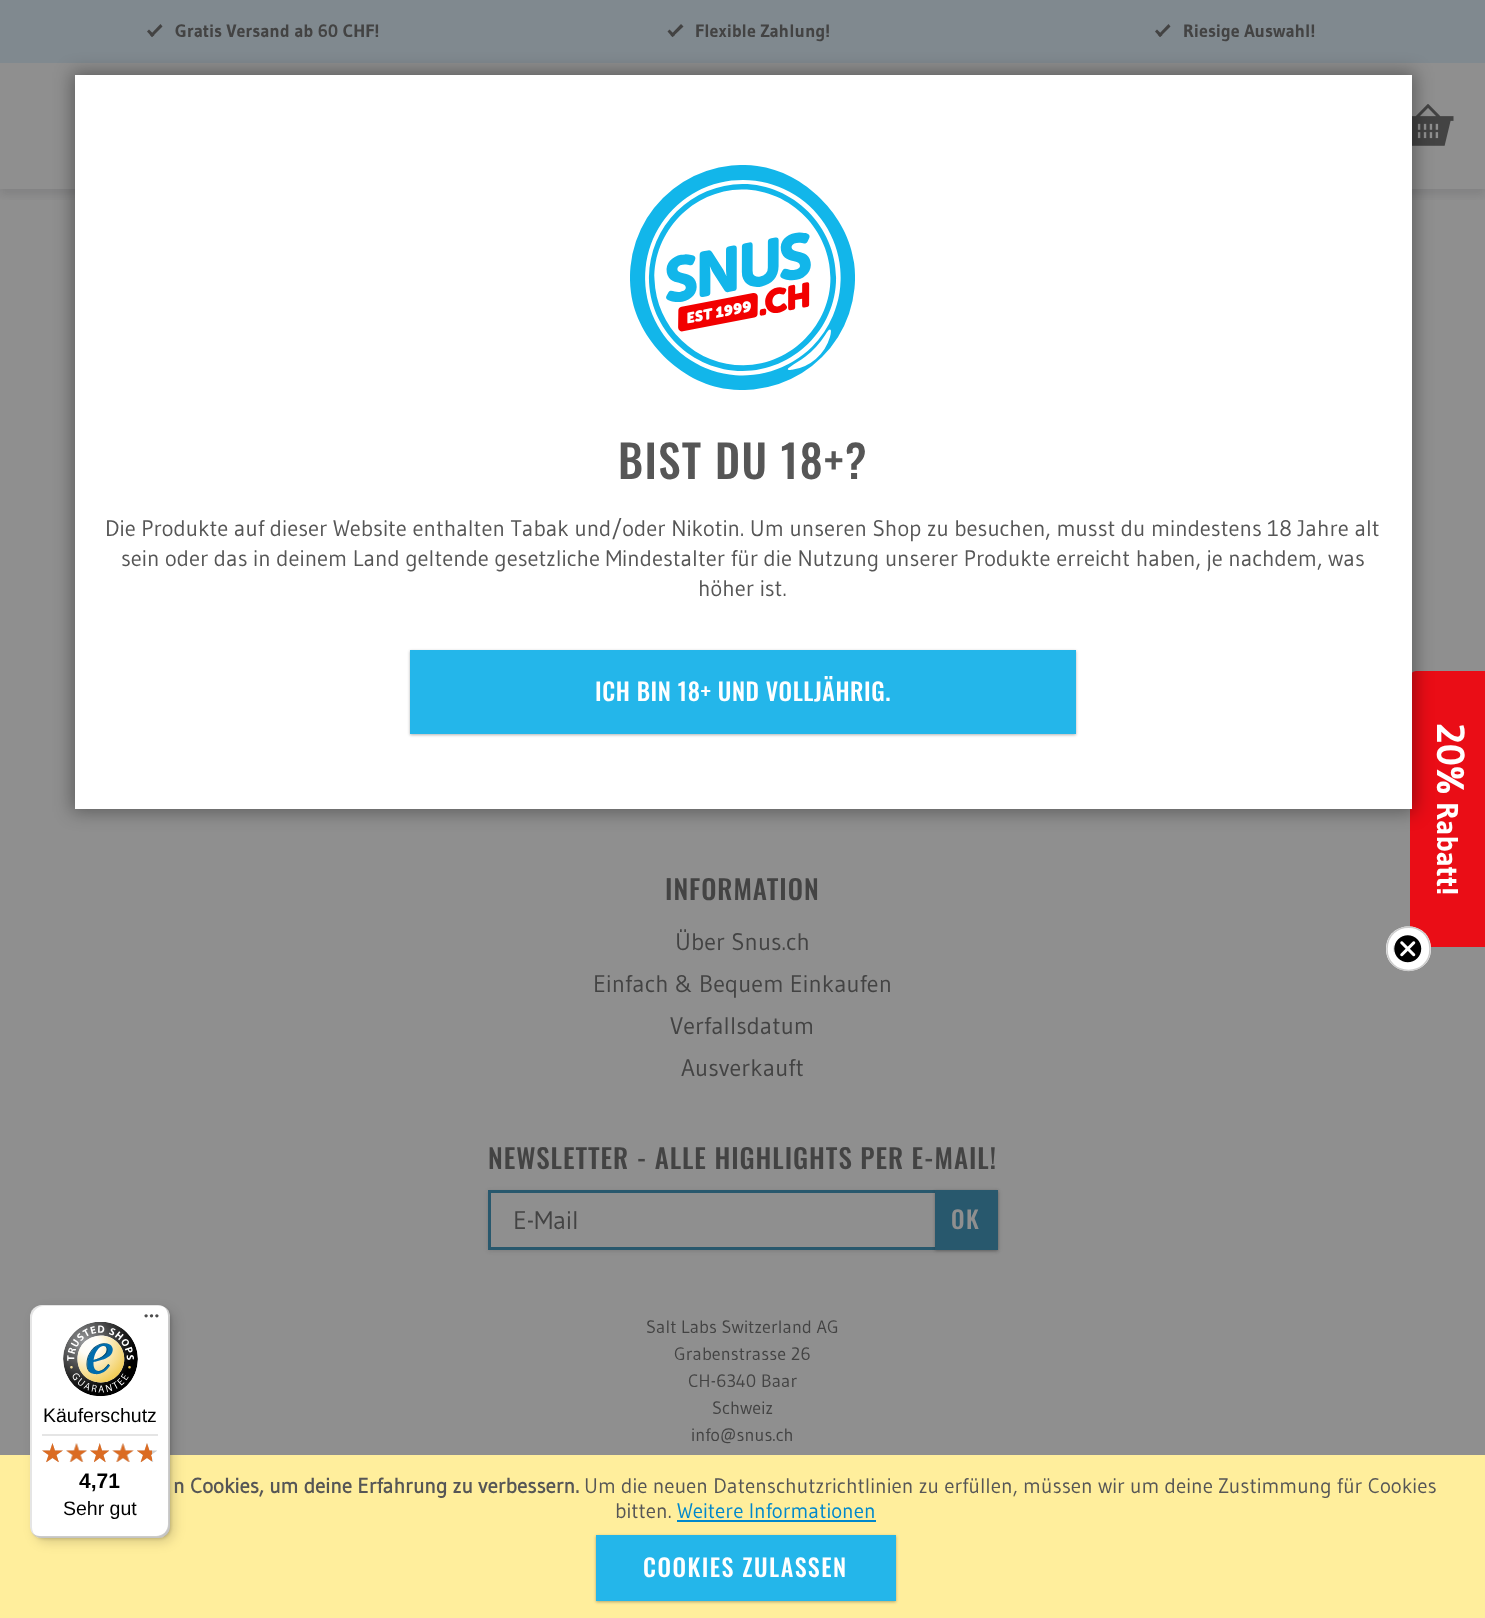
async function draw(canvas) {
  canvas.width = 1485;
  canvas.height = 1618;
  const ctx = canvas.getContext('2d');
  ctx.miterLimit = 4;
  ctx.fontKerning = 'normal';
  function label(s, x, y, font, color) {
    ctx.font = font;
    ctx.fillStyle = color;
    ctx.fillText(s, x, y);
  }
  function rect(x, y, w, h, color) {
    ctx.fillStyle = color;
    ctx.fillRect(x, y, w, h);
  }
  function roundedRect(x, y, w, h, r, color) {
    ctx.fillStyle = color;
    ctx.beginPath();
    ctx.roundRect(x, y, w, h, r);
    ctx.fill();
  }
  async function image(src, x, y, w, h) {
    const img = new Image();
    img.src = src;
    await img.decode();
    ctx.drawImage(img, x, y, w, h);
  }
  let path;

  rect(0, 0, 1485, 1618, '#8f8f8f');
  rect(0, 0, 1485, 63, '#80898f');
  ctx.fillStyle = '#434343';
  path = new Path2D('M147 31.5L149 29.5L154.5 35L152 37Z');
  ctx.fill(path);
  path = new Path2D('M150 35L160.5 24L162.5 26.5L152 37Z');
  ctx.fill(path);
  label('Gratis Versand ab 60 CHF!', 175, 37, 'bold 18px Gudea', '#434343');
  path = new Path2D('M667.5 31.5L669.5 29.5L675 35L672.5 37Z');
  ctx.fill(path);
  path = new Path2D('M670.5 35L681 24L683.5 26.5L672.5 37Z');
  ctx.fill(path);
  label('Flexible Zahlung!', 695, 37, 'bold 18px Gudea', '#434343');
  path = new Path2D('M1155 31.5L1157 29.5L1162.5 35L1160 37Z');
  ctx.fill(path);
  path = new Path2D('M1158 35L1168.5 24L1170.5 26.5L1160 37Z');
  ctx.fill(path);
  label('Riesige Auswahl!', 1183, 37, 'bold 18px Gudea', '#434343');
  ctx.save();
  ctx.beginPath();
  ctx.rect(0, 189, 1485, 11);
  ctx.clip();
  ctx.fillStyle = '#36363c26';
  ctx.filter = 'blur(4.5px)';
  ctx.beginPath();
  ctx.rect(0, 69, 1485, 126);
  ctx.fill();
  ctx.filter = 'none';
  ctx.restore();
  await image('assets/img1.png', 1412, 104, 42, 42);
  ctx.fillStyle = '#ea0d16';
  path = new Path2D('M1485 671V947H1416C1413 947 1410 945 1410 941V677C1410 674 1413 671 1416 671Z');
  ctx.fill(path);
  ctx.fillStyle = '#00000059';
  ctx.filter = 'blur(9px)';
  ctx.beginPath();
  ctx.rect(72, 72, 1343, 740);
  ctx.fill();
  ctx.filter = 'none';
  rect(75, 75, 1337, 734, '#fff');
  await image('assets/img2.png', 630, 165, 225, 225);
  ctx.letterSpacing = '1.4px';
  label('BIST DU 18+?', 618, 479, '500 45px Oswald', '#565656');
  ctx.letterSpacing = '0px';
  label('Die Produkte auf dieser Website enthalten Tabak und/oder Nikotin. Um unseren Shop zu besuchen, musst du mindestens 18 Jahre alt', 105, 536, '22.5px Gudea', '#565656');
  label('sein oder das in deinem Land geltende gesetzliche Mindestalter für die Nutzung unserer Produkte erreicht haben, je nachdem, was', 121, 566, '22.5px Gudea', '#565656');
  label('höher ist.', 698, 596, '22.5px Gudea', '#565656');
  ctx.fillStyle = '#0000004d';
  ctx.filter = 'blur(1.5px)';
  ctx.beginPath();
  ctx.rect(410, 651, 666, 84);
  ctx.fill();
  ctx.filter = 'none';
  rect(410, 650, 666, 84, '#24b6ea');
  ctx.letterSpacing = '0.55px';
  label('ICH BIN 18+ UND VOLLJÄHRIG.', 595, 701, '500 24px Oswald', '#fff');
  ctx.letterSpacing = '0px';
  ctx.font = 'bold 39px "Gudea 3"';
  ctx.save();
  ctx.translate(1437, 723);
  ctx.rotate(90 * Math.PI / 180);
  ctx.fillText('20%', 0, 0);
  ctx.restore();
  ctx.font = 'bold 30px "Gudea 3"';
  ctx.save();
  ctx.translate(1437, 802);
  ctx.rotate(90 * Math.PI / 180);
  ctx.fillText('Rabatt!', 0, 0);
  ctx.restore();
  path = new Path2D('M1431 949C1431 978 1386 978 1386 949C1386 919 1431 919 1431 949Z');
  ctx.fill(path);
  path = new Path2D('M1430 949C1430 977.5 1387 977.5 1387 949C1387 920 1430 920 1430 949Z');
  ctx.strokeStyle = '#ccc';
  ctx.lineWidth = 1.5;
  ctx.stroke(path);
  await image('assets/img3.png', 1393, 935, 29, 28);
  ctx.letterSpacing = '0.95px';
  label('INFORMATION', 665, 900, '500 27px Oswald', '#434343');
  ctx.letterSpacing = '0.1px';
  label('Über Snus.ch', 675, 950, '24px Gudea', '#434343');
  label('Einfach & Bequem Einkaufen', 593, 992, '24px Gudea', '#434343');
  label('Verfallsdatum', 670, 1034, '24px Gudea', '#434343');
  label('Ausverkauft', 681, 1076, '24px Gudea', '#434343');
  ctx.letterSpacing = '0.95px';
  label('NEWSLETTER - ALLE HIGHLIGHTS PER E-MAIL!', 488, 1169, '500 27px Oswald', '#434343');
  ctx.save();
  path = new Path2D('M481 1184H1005V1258H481ZM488 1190H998V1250H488Z');
  ctx.clip(path, 'evenodd');
  ctx.fillStyle = '#1c1c1c29';
  ctx.filter = 'blur(2px)';
  ctx.beginPath();
  ctx.rect(488, 1191, 510, 60);
  ctx.fill();
  ctx.filter = 'none';
  ctx.restore();
  ctx.strokeStyle = '#28586d';
  ctx.lineWidth = 3;
  ctx.strokeRect(489.5, 1191.5, 447, 57);
  ctx.letterSpacing = '0px';
  label('E-Mail', 513, 1229, '25.5px Gudea', '#434343');
  ctx.fillStyle = '#1c1c1c4d';
  ctx.filter = 'blur(1.5px)';
  ctx.beginPath();
  ctx.rect(935, 1191, 63, 60);
  ctx.fill();
  ctx.filter = 'none';
  rect(935, 1190, 63, 60, '#28586d');
  ctx.letterSpacing = '1.5px';
  label('OK', 951, 1229, '500 24px Oswald', '#8f8f8f');
  ctx.letterSpacing = '0.1px';
  label('Salt Labs Switzerland AG', 646, 1333, '18px Gudea', '#434343');
  label('Grabenstrasse 26', 674, 1360, '18px Gudea', '#434343');
  label('CH-6340 Baar', 688, 1387, '18px Gudea', '#434343');
  label('Schweiz', 712, 1414, '18px Gudea', '#434343');
  label('info@snus.ch', 691, 1441, '18px Gudea', '#434343');
  rect(0, 1455, 1485, 163, '#ffee9c');
  ctx.fillStyle = '#00000026';
  ctx.filter = 'blur(6px)';
  ctx.beginPath();
  ctx.roundRect(35, 1310, 139, 232, 12);
  ctx.fill();
  ctx.filter = 'none';
  ctx.filter = 'blur(1.5px)';
  ctx.beginPath();
  ctx.roundRect(32, 1307, 139, 232, 12);
  ctx.fill();
  ctx.filter = 'none';
  roundedRect(30, 1305, 140, 233, 12, '#fff');
  ctx.fillStyle = '#0000001a';
  path = new Path2D('M44 1306H159C162 1306 165 1307 167 1309C165 1307 162 1305 158 1305H42C35 1305 30 1310 30 1317V1526C30 1531 33 1535 37 1537C34 1535 32 1531 32 1527V1318C32 1312 37 1306 44 1306Z');
  ctx.fill(path);
  ctx.fillStyle = '#00000033';
  path = new Path2D('M32 1533C35 1536 38 1538 42 1538H158C165 1538 170 1533 170 1526V1317C170 1312 167 1308 163 1306C166 1308 168 1312 168 1316V1524C168 1531 163 1536 156 1536H40C37 1536 35 1535 32 1533Z');
  ctx.fill(path);
  ctx.fillStyle = '#32323233';
  path = new Path2D('M33 1534C35 1536 38 1538 42 1538H158C165 1538 170 1533 170 1526V1317C170 1313 168 1310 166 1308C168 1310 169 1313 169 1316V1525C169 1531 163 1537 157 1537H41C38 1537 35 1536 33 1534Z');
  ctx.fill(path);
  ctx.fillStyle = '#ffffff4d';
  path = new Path2D('M32 1532C34 1536 37 1538 42 1538H158C165 1538 170 1533 170 1526V1317C170 1312 168 1309 164 1307C167 1309 169 1312 169 1316V1525C169 1531 163 1537 157 1537H41C37 1537 34 1535 32 1532Z');
  ctx.fill(path);
  await image('assets/img4.png', 144, 1314, 15, 4);
  await image('assets/img5.png', 63, 1322, 75, 75);
  ctx.letterSpacing = '0px';
  label('Käuferschutz', 43, 1422, '19.5px Liberation Sans', '#000');
  rect(42, 1434, 116, 2, '#e5e5e5');
  await image('assets/img6.png', 42, 1443, 21, 19);
  await image('assets/img7.png', 66, 1443, 21, 19);
  await image('assets/img8.png', 90, 1443, 19, 19);
  await image('assets/img9.png', 112, 1443, 22, 19);
  await image('assets/img10.png', 137, 1443, 20, 19);
  await image('assets/img11.png', 42, 1443, 21, 20);
  await image('assets/img12.png', 66, 1443, 21, 19);
  await image('assets/img13.png', 90, 1443, 20, 20);
  await image('assets/img14.png', 112, 1443, 22, 19);
  await image('assets/img15.png', 137, 1443, 15, 20);
  label('4,71', 79, 1488, 'bold 21px Liberation Sans', '#000');
  label('Sehr gut', 63, 1515, '19.5px Liberation Sans', '#000');
  label('n Cookies, um deine Erfahrung zu verbessern.', 173, 1493, 'bold 21px "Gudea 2"', '#565656');
  label('Um die neuen Datenschutzrichtlinien zu erfüllen, müssen wir um deine Zustimmung für Cookies', 584, 1493, '21px Gudea', '#565656');
  label('bitten.', 615, 1518, '21px Gudea', '#565656');
  label('Weitere Informationen', 677, 1518, '21px Gudea', '#08c');
  rect(677, 1520, 199, 2, '#08c');
  ctx.fillStyle = '#0000004d';
  ctx.filter = 'blur(1.5px)';
  ctx.beginPath();
  ctx.rect(596, 1536, 300, 66);
  ctx.fill();
  ctx.filter = 'none';
  rect(596, 1535, 300, 66, '#24b6ea');
  ctx.letterSpacing = '1.5px';
  label('COOKIES ZULASSEN', 643, 1577, '500 24px Oswald', '#fff');
}

draw(document.querySelector('canvas'));
